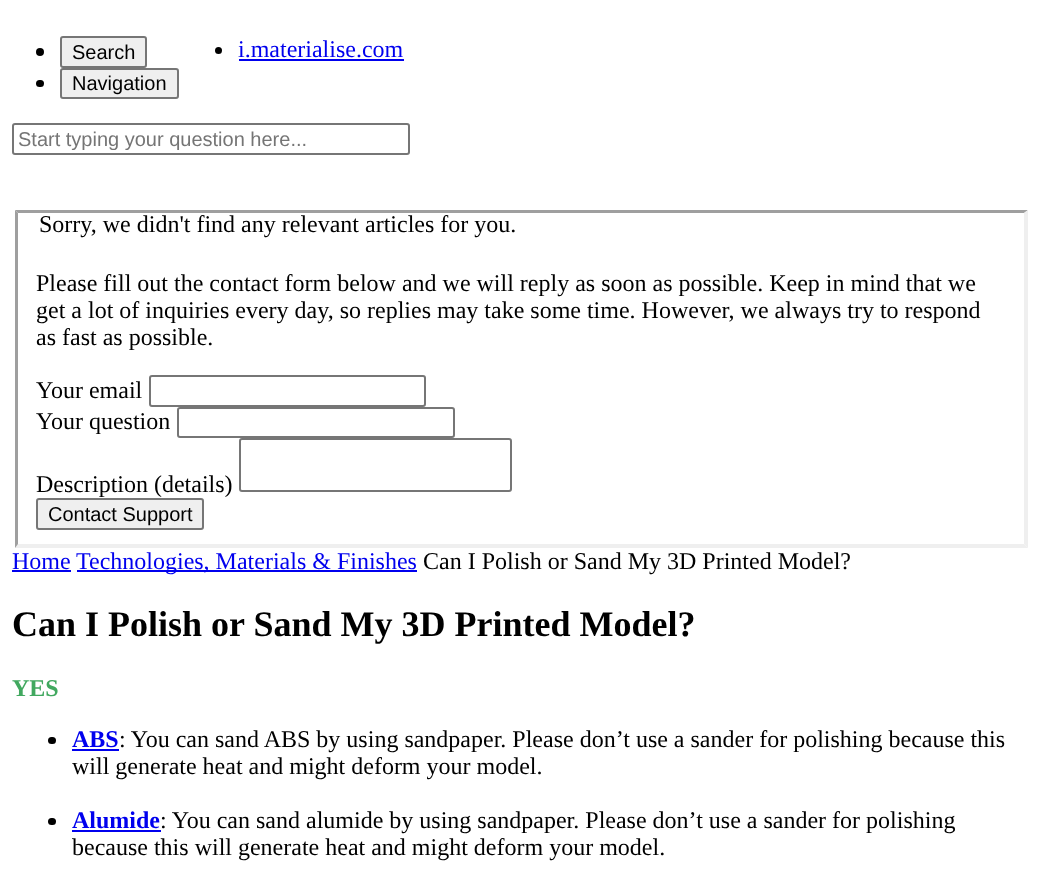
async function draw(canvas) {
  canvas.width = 1042;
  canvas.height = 885;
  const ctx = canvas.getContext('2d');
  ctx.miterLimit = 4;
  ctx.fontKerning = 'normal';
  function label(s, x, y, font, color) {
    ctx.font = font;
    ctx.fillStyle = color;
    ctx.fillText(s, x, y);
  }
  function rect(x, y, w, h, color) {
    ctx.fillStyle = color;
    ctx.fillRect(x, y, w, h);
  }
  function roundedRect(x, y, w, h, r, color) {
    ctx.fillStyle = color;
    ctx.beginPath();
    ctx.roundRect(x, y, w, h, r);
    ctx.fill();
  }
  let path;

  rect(0, 0, 1042, 885, '#fff');
  ctx.fillStyle = '#000';
  ctx.beginPath();
  ctx.arc(40, 52, 4, 0, 2 * Math.PI);
  ctx.fill();
  ctx.fillStyle = '#efefef';
  ctx.beginPath();
  ctx.roundRect(61, 37, 85, 30, 2);
  ctx.fill();
  ctx.strokeStyle = '#767676';
  ctx.lineWidth = 2;
  ctx.stroke();
  label('Search', 72, 59, '20px Liberation Sans', '#000');
  roundedRect(36, 80, 8, 7, 3.5, '#000');
  ctx.fillStyle = '#efefef';
  ctx.beginPath();
  ctx.roundRect(61, 69, 117, 29, 2);
  ctx.fill();
  ctx.stroke();
  label('Navigation', 72, 90, '20px Liberation Sans', '#000');
  ctx.beginPath();
  ctx.arc(218.5, 50.5, 3.5, 0, 2 * Math.PI);
  ctx.fill();
  label('i.materialise.com', 238, 57, '24px Liberation Serif', '#00e');
  rect(239, 59, 165, 2, '#00e');
  ctx.beginPath();
  ctx.roundRect(13, 124, 396, 30, 2);
  ctx.stroke();
  ctx.save();
  ctx.beginPath();
  ctx.rect(18, 128, 386, 22);
  ctx.clip();
  label('Start typing your question here...', 18, 146, '20px Liberation Sans', '#757575');
  ctx.restore();
  ctx.fillStyle = '#9f9f9f';
  path = new Path2D('M15 210H1028L1024 213H18Z');
  ctx.fill(path);
  ctx.fillStyle = '#efefef';
  path = new Path2D('M1028 210V548L1024 544V213Z');
  ctx.fill(path);
  path = new Path2D('M1028 548H15L18 544H1024Z');
  ctx.fill(path);
  ctx.fillStyle = '#9f9f9f';
  path = new Path2D('M15 548V210L18 213V544Z');
  ctx.fill(path);
  label('Sorry, we didn\'t find any relevant articles for you.', 39, 232, '24px Liberation Serif', '#000');
  label('Please fill out the contact form below and we will reply as soon as possible. Keep in mind that we', 36, 291, '24px Liberation Serif', '#000');
  label('get a lot of inquiries every day, so replies may take some time. However, we always try to respond', 36, 318, '24px Liberation Serif', '#000');
  label('as fast as possible.', 36, 345, '24px Liberation Serif', '#000');
  label('Your email', 36, 398, '24px Liberation Serif', '#000');
  ctx.beginPath();
  ctx.roundRect(150, 376, 275, 30, 2);
  ctx.stroke();
  label('Your question', 36, 429, '24px Liberation Serif', '#000');
  ctx.beginPath();
  ctx.roundRect(178, 408, 276, 29, 2);
  ctx.stroke();
  label('Description (details)', 36, 492, '24px Liberation Serif', '#000');
  ctx.beginPath();
  ctx.roundRect(240, 439, 271, 52, 2);
  ctx.stroke();
  ctx.fillStyle = '#efefef';
  ctx.beginPath();
  ctx.roundRect(37, 499, 166, 30, 2);
  ctx.fill();
  ctx.stroke();
  label('Contact Support', 48, 521, '20px Liberation Sans', '#000');
  label('Home', 12, 569, '24px Liberation Serif', '#00e');
  rect(12, 570, 59, 2, '#00e');
  rect(77, 570, 340, 2, '#00e');
  label('Technologies, Materials & Finishes', 76, 569, '24px Liberation Serif', '#00e');
  label('Can I Polish or Sand My 3D Printed Model?', 423, 569, '24px Liberation Serif', '#000');
  label('Can I Polish or Sand My 3D Printed Model?', 12, 636, 'bold 36px Liberation Serif', '#000');
  label('YES', 12, 696, 'bold 24px Liberation Serif', '#41a85f');
  roundedRect(48, 737, 8, 7, 3.5, '#000');
  label('ABS', 72, 747, 'bold 24px Liberation Serif', '#00e');
  rect(72, 749, 47, 2, '#00e');
  label(': You can sand ABS by using sandpaper. Please don’t use a sander for polishing because this', 119, 747, '24px Liberation Serif', '#000');
  label('will generate heat and might deform your model.', 72, 774, '24px Liberation Serif', '#000');
  roundedRect(48, 818, 8, 7, 3.5, '#000');
  label('Alumide', 72, 828, 'bold 24px Liberation Serif', '#00e');
  rect(72, 830, 89, 2, '#00e');
  label(': You can sand alumide by using sandpaper. Please don’t use a sander for polishing', 160, 828, '24px Liberation Serif', '#000');
  label('because this will generate heat and might deform your model.', 72, 855, '24px Liberation Serif', '#000');
}

draw(document.querySelector('canvas'));
